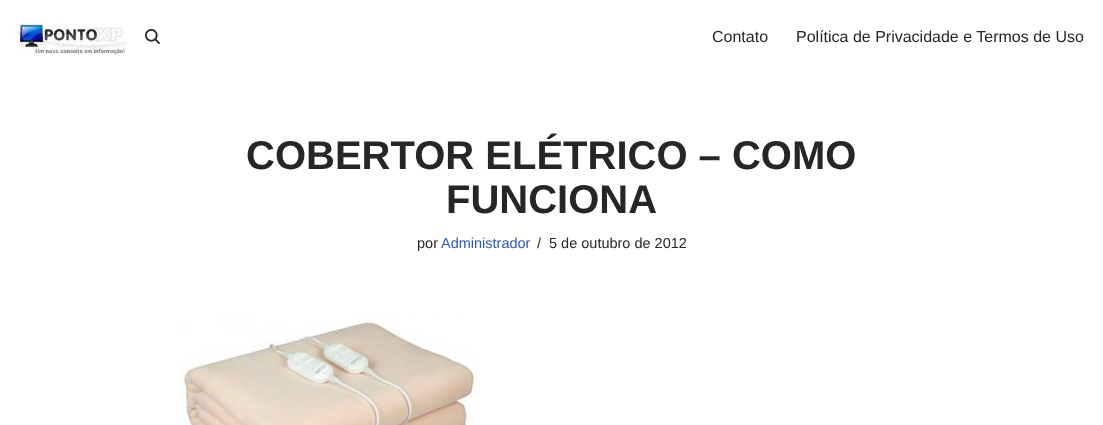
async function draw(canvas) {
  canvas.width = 1103;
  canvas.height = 425;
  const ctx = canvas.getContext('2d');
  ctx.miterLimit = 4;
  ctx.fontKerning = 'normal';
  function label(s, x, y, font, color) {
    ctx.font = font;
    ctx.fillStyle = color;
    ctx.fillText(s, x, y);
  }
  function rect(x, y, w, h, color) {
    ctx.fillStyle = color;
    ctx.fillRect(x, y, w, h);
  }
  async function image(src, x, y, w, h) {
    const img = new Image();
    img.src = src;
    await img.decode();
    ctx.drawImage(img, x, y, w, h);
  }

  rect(0, 0, 1103, 425, '#fff');
  await image('assets/img1.png', 15, 23, 113, 32);
  await image('assets/img2.png', 145, 29, 15, 15);
  label('Contato', 712, 42, '16px Liberation Sans', '#272626');
  label('Política de Privacidade e Termos de Uso', 796, 42, '16px Liberation Sans', '#272626');
  label('COBERTOR ELÉTRICO – COMO', 246, 169, 'bold 40px Liberation Sans', '#272626');
  label('FUNCIONA', 446, 213, 'bold 40px Liberation Sans', '#272626');
  label('por', 417, 248, '14.5px Liberation Sans', '#272626');
  label('Administrador', 441, 248, '14.5px Liberation Sans', '#2f5aae');
  label('/', 537, 248, '14.5px Liberation Sans', '#272626');
  label('5 de outubro de 2012', 549, 248, '14.5px Liberation Sans', '#272626');
  await image('assets/img3.png', 180, 316, 298, 109);
}

draw(document.querySelector('canvas'));
